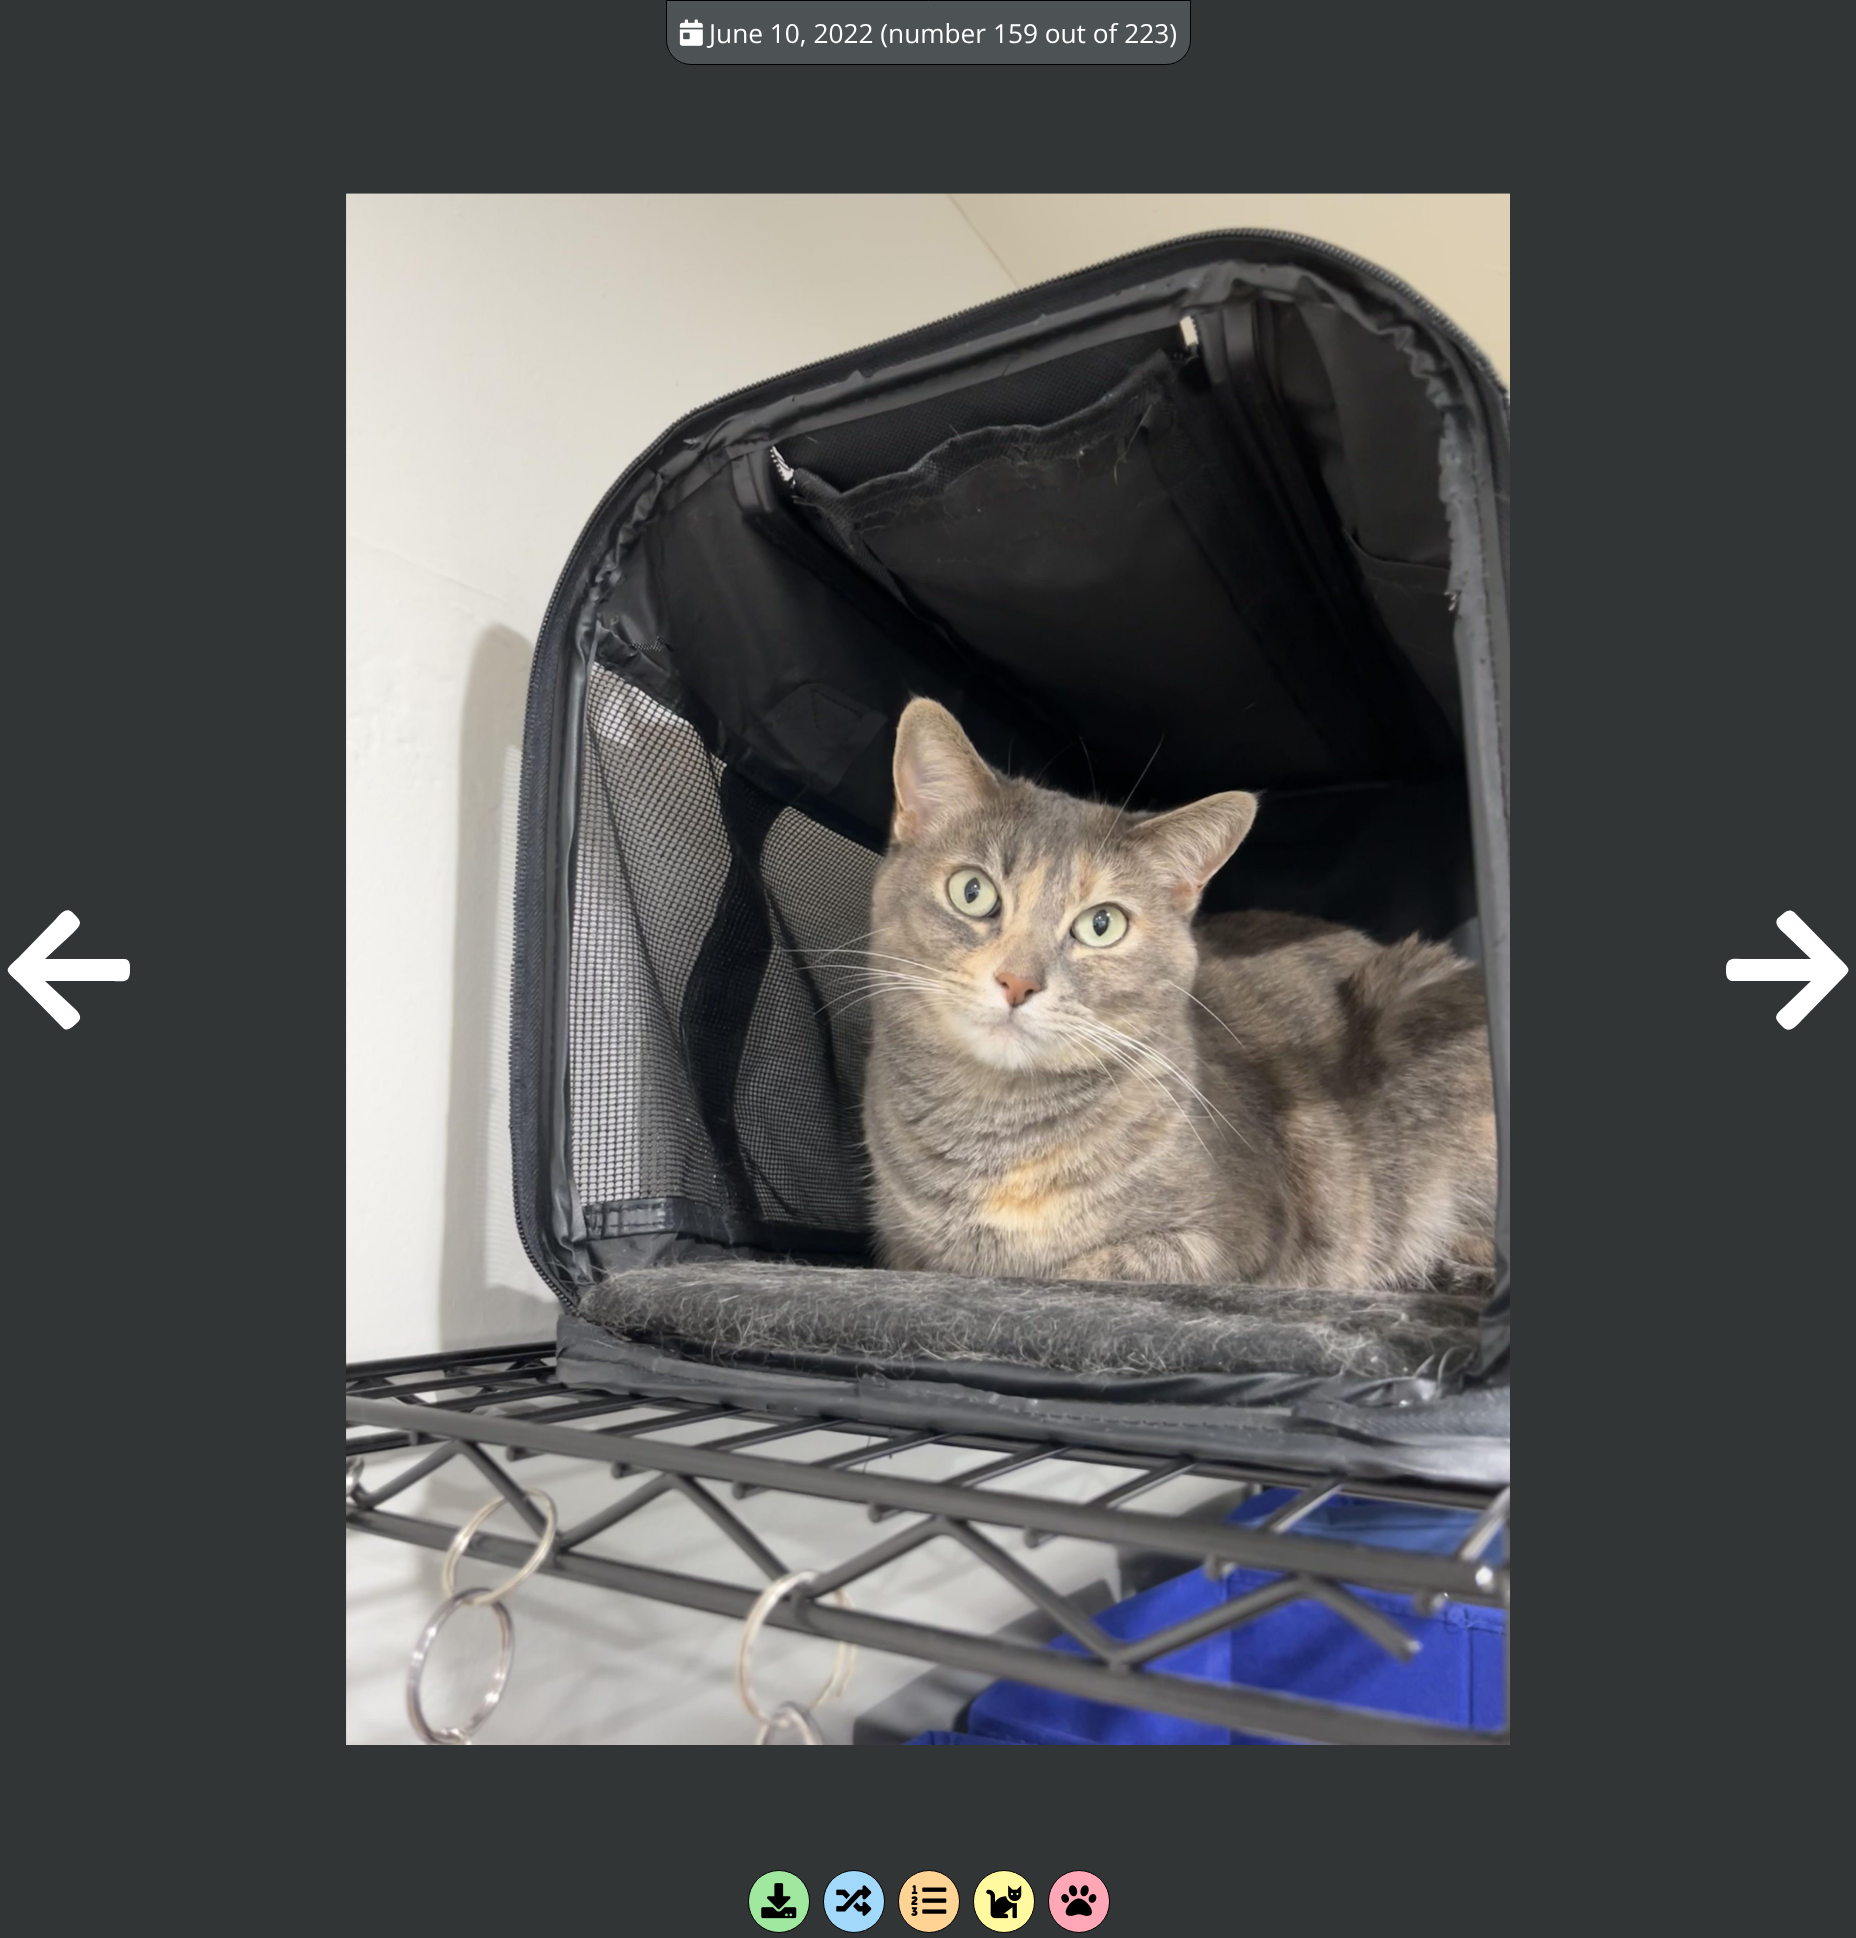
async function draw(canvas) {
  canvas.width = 1856;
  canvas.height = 1938;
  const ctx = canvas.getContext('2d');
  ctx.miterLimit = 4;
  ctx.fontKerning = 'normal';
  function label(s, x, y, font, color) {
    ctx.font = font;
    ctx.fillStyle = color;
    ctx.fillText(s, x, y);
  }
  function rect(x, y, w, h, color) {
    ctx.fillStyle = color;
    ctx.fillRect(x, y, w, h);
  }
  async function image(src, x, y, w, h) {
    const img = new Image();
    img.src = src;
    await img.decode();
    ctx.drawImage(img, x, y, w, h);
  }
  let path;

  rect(0, 0, 1856, 1938, '#313536');
  ctx.fillStyle = '#4d5355';
  ctx.beginPath();
  ctx.roundRect(666.5, 0.5, 524, 64, [0, 0, 24.5, 24.5]);
  ctx.fill();
  ctx.strokeStyle = '#000';
  ctx.stroke();
  await image('assets/img1.png', 679, 19, 24, 27);
  label('June 10, 2022 (number 159 out of 223)', 709, 43, '26.25px Open Sans', '#fff');
  path = new Path2D('M78 1022C74 1025 68 1033 63 1028L19 983C4 969 4 971 19 957L54 921C58 917 65 906 72 912C82 922 83 923 73 933L45 959H124C131 959 130 966 130 971C130 984 122 981 111 981H45L73 1007C76 1010 84 1016 78 1022Z');
  ctx.fill(path);
  await image('assets/img2.png', 346, 193, 1164, 1552);
  path = new Path2D('M1778 918C1782 915 1788 907 1794 912L1838 957C1852 971 1852 969 1838 983L1803 1019C1799 1023 1791 1034 1784 1028C1774 1018 1773 1017 1784 1007L1811 981H1733C1726 981 1726 974 1726 969C1726 956 1735 959 1746 959H1811L1784 933C1781 930 1773 924 1778 918Z');
  ctx.fill(path);
  ctx.fillStyle = '#a0e7a0';
  ctx.beginPath();
  ctx.roundRect(748.5, 1870.5, 61, 62, 30.5);
  ctx.fill();
  ctx.stroke();
  await image('assets/img3.png', 761, 1883, 36, 36);
  ctx.fillStyle = '#a2d9fb';
  ctx.beginPath();
  ctx.roundRect(823.5, 1870.5, 61, 62, 30.5);
  ctx.fill();
  ctx.stroke();
  await image('assets/img4.png', 836, 1885, 36, 31);
  ctx.fillStyle = '#ffd394';
  ctx.beginPath();
  ctx.roundRect(898.5, 1870.5, 61, 62, 30.5);
  ctx.fill();
  ctx.stroke();
  await image('assets/img5.png', 911, 1885, 36, 31);
  ctx.fillStyle = '#fffaa0';
  ctx.beginPath();
  ctx.roundRect(973.5, 1870.5, 61, 62, 30.5);
  ctx.fill();
  ctx.stroke();
  await image('assets/img6.png', 986, 1885, 36, 34);
  ctx.fillStyle = '#ffa7b6';
  ctx.beginPath();
  ctx.roundRect(1048.5, 1870.5, 61, 62, 30.5);
  ctx.fill();
  ctx.stroke();
  await image('assets/img7.png', 1061, 1885, 36, 31);
}

draw(document.querySelector('canvas'));
